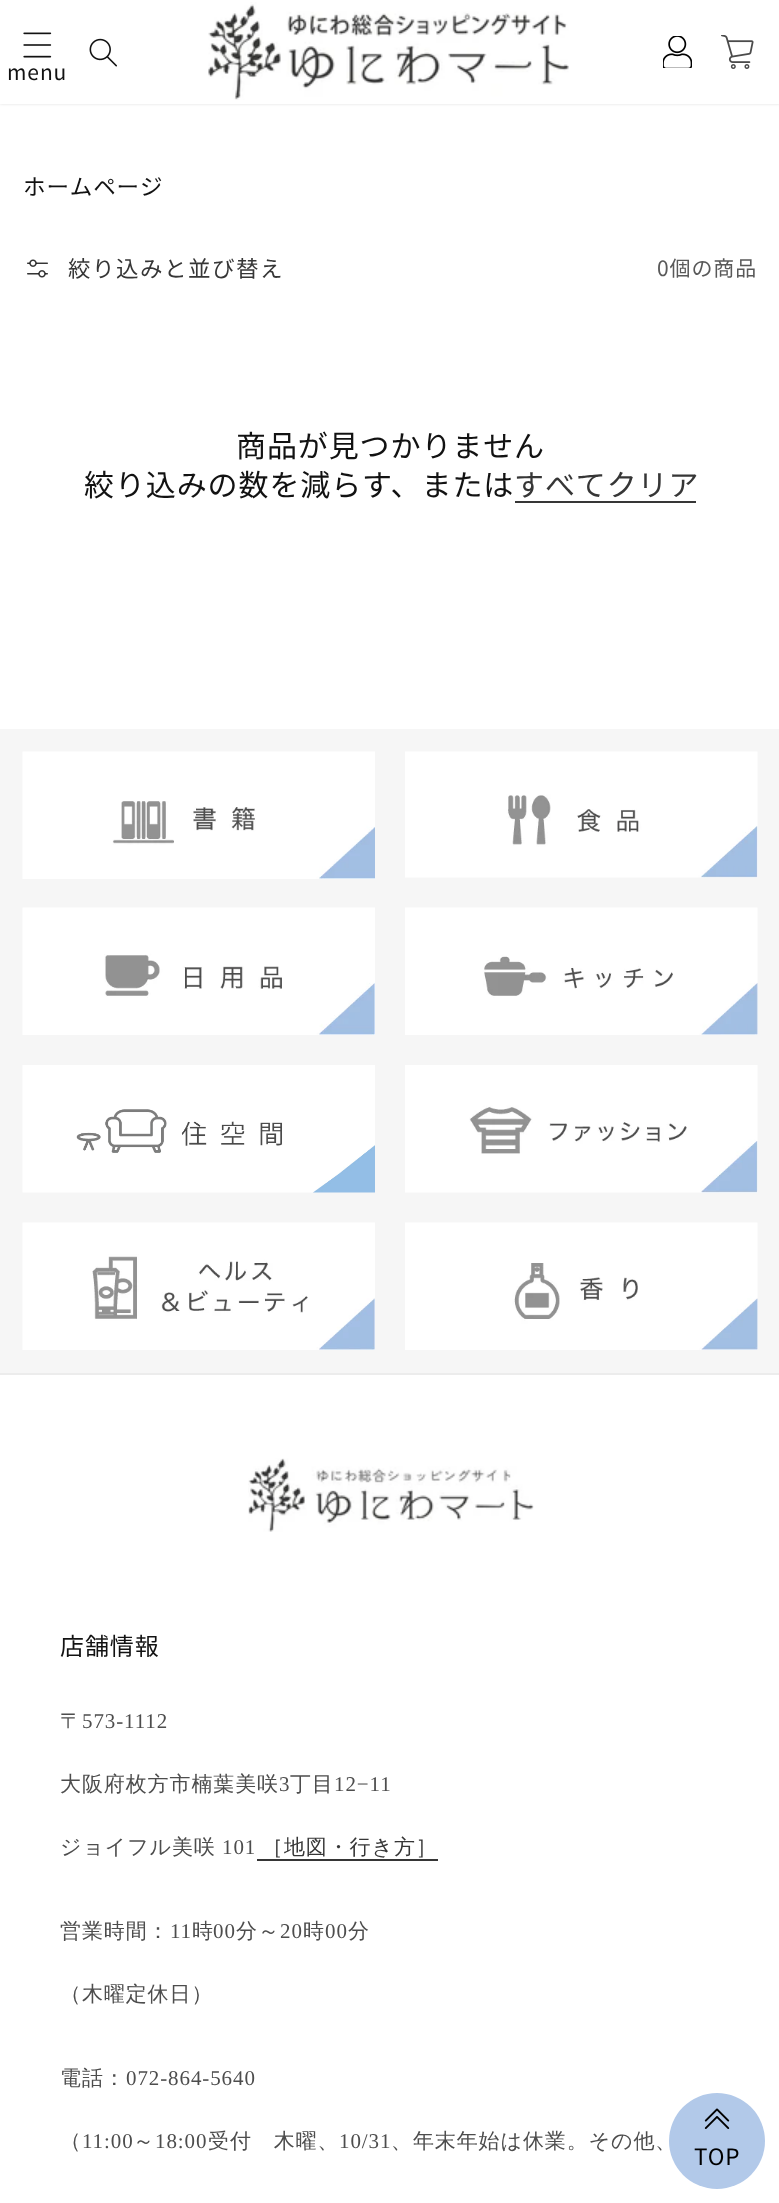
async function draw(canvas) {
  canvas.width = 779;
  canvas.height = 2203;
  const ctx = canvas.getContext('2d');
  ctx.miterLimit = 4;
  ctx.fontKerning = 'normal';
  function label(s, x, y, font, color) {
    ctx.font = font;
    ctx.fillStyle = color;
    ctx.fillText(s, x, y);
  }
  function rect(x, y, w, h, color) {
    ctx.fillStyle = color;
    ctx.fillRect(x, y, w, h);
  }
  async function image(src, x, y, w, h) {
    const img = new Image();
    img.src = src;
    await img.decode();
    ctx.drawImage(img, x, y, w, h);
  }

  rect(0, 0, 779, 2203, '#fff');
  ctx.fillStyle = '#ddd';
  ctx.filter = 'blur(1.5px)';
  ctx.beginPath();
  ctx.rect(0, 0, 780, 104);
  ctx.fill();
  ctx.filter = 'none';
  rect(0, 0, 779, 104, '#fff');
  await image('assets/img1.png', 208, 2, 361, 98);
  await image('assets/img2.png', 663, 36, 29, 32);
  await image('assets/img3.png', 721, 35, 33, 34);
  await image('assets/img4.png', 89, 38, 28, 29);
  await image('assets/img5.png', 23, 32, 29, 26);
  ctx.letterSpacing = '0.9px';
  label('menu', 7, 80, '21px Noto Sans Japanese', '#121212');
  label('ホームページ', 23, 195, '22.5px Noto Sans Japanese', '#121212');
  await image('assets/img6.png', 27, 259, 21, 19);
  ctx.letterSpacing = '1.5px';
  label('絞り込みと並び替え', 68, 277, '22.5px Noto Sans Japanese', '#363636');
  ctx.letterSpacing = '0.9px';
  label('0個の商品', 657, 276, '21px Noto Sans Japanese', '#595959');
  label('商品が見つかりません', 236, 457, '30px Noto Sans Japanese', '#121212');
  label('絞り込みの数を減らす、または', 84, 496, '30px Noto Sans Japanese', '#121212');
  label('すべてクリア', 514, 496, '30px Noto Sans Japanese', '#363636');
  rect(515, 501, 181, 2, '#363636');
  rect(0, 729, 779, 644, '#f6f6f6');
  await image('assets/img7.png', 22, 751, 353, 128);
  await image('assets/img8.png', 405, 751, 353, 127);
  await image('assets/img9.png', 22, 907, 353, 128);
  await image('assets/img10.png', 405, 907, 353, 128);
  await image('assets/img11.png', 22, 1065, 353, 128);
  await image('assets/img12.png', 405, 1065, 353, 128);
  await image('assets/img13.png', 22, 1222, 353, 128);
  await image('assets/img14.png', 405, 1222, 353, 128);
  rect(0, 1373, 779, 2, '#ececec');
  await image('assets/img15.png', 248, 1458, 286, 74);
  label('店舗情報', 60, 1655, '24px Noto Sans Japanese', '#121212');
  label('〒', 60, 1728, '500 21px WenQuanYi Zen Hei', '#4d4d4d');
  label('573-1112', 82, 1728, '21px Liberation Serif', '#4d4d4d');
  label('大阪府枚方市楠葉美咲', 60, 1791, '500 21px WenQuanYi Zen Hei', '#4d4d4d');
  label('3', 279, 1791, '21px Liberation Serif', '#4d4d4d');
  label('丁目', 290, 1791, '500 21px WenQuanYi Zen Hei', '#4d4d4d');
  label('12−11', 334, 1791, '21px Liberation Serif', '#4d4d4d');
  label('ジョイフル美咲', 60, 1854, '500 21px WenQuanYi Zen Hei', '#4d4d4d');
  label('101', 222, 1854, '21px Liberation Serif', '#4d4d4d');
  label('［地図・行き方］', 262, 1854, '500 21px WenQuanYi Zen Hei', '#363636');
  rect(257, 1859, 181, 2, '#363636');
  label('営業時間：', 60, 1938, '500 21px WenQuanYi Zen Hei', '#4d4d4d');
  label('11', 170, 1938, '21px Liberation Serif', '#4d4d4d');
  label('時', 192, 1938, '500 21px WenQuanYi Zen Hei', '#4d4d4d');
  label('00', 213, 1938, '21px Liberation Serif', '#4d4d4d');
  label('分～', 236, 1938, '500 21px WenQuanYi Zen Hei', '#4d4d4d');
  label('20', 280, 1938, '21px Liberation Serif', '#4d4d4d');
  label('時', 303, 1938, '500 21px WenQuanYi Zen Hei', '#4d4d4d');
  label('00', 325, 1938, '21px Liberation Serif', '#4d4d4d');
  label('分', 348, 1938, '500 21px WenQuanYi Zen Hei', '#4d4d4d');
  label('（木曜定休日）', 60, 2001, '500 21px WenQuanYi Zen Hei', '#4d4d4d');
  label('電話：', 60, 2085, '500 21px WenQuanYi Zen Hei', '#4d4d4d');
  label('072-864-5640', 126, 2085, '21px Liberation Serif', '#4d4d4d');
  label('（', 60, 2148, '500 21px WenQuanYi Zen Hei', '#4d4d4d');
  label('11:00', 82, 2148, '21px Liberation Serif', '#4d4d4d');
  label('～', 133, 2148, '500 21px WenQuanYi Zen Hei', '#4d4d4d');
  label('18:00', 155, 2148, '21px Liberation Serif', '#4d4d4d');
  label('受付　木曜、', 208, 2148, '500 21px WenQuanYi Zen Hei', '#4d4d4d');
  label('10/31', 339, 2148, '21px Liberation Serif', '#4d4d4d');
  label('、年末年始は休業。その他、', 391, 2148, '500 21px WenQuanYi Zen Hei', '#4d4d4d');
  ctx.fillStyle = '#b2c9e9';
  ctx.beginPath();
  ctx.arc(717, 2141, 48, 0, 2 * Math.PI);
  ctx.fill();
  await image('assets/img16.png', 704, 2108, 26, 21);
  label('TOP', 694, 2165, '22.5px Noto Sans Japanese', '#000');
}

draw(document.querySelector('canvas'));
